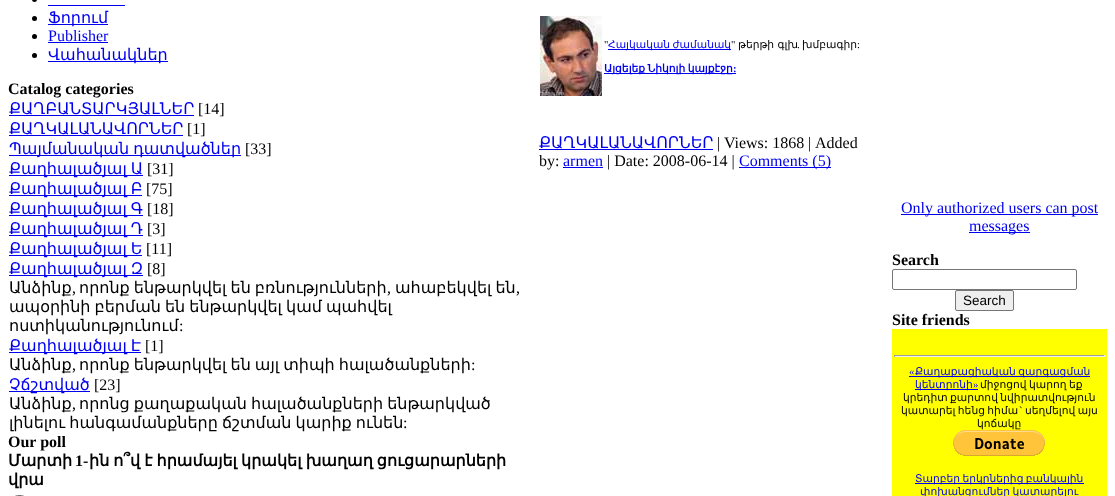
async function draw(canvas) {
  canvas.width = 1115;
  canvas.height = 496;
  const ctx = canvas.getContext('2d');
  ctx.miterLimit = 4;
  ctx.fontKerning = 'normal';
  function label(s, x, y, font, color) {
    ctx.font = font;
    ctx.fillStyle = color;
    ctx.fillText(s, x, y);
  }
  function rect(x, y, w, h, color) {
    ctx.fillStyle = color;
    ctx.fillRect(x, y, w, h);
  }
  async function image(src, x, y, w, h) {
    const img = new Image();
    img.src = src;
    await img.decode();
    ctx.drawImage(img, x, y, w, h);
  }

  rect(0, 0, 1115, 496, '#fff');
  ctx.fillStyle = '#000';
  ctx.beginPath();
  ctx.arc(34.5, -0.5, 2.5, 0, 2 * Math.PI);
  ctx.fill();
  rect(48, 5, 77, 1, '#00e');
  ctx.fillStyle = '#000';
  ctx.beginPath();
  ctx.arc(34.5, 18.5, 2.5, 0, 2 * Math.PI);
  ctx.fill();
  rect(48, 24, 60, 1, '#00e');
  label('Ֆորում', 48, 23, '16px DejaVu Sans', '#00e');
  ctx.fillStyle = '#000';
  ctx.beginPath();
  ctx.arc(34.5, 36.5, 2.5, 0, 2 * Math.PI);
  ctx.fill();
  label('Publisher', 48, 41, '16px Liberation Serif', '#00e');
  rect(48, 42, 60, 1, '#00e');
  ctx.fillStyle = '#000';
  ctx.beginPath();
  ctx.arc(34.5, 55.5, 2.5, 0, 2 * Math.PI);
  ctx.fill();
  rect(48, 61, 120, 1, '#00e');
  label('Վահանակներ', 48, 60, '16px DejaVu Sans', '#00e');
  label('Catalog categories', 8, 94, 'bold 16px Liberation Serif', '#000');
  label('ՔԱՂԲԱՆՏԱՐԿՅԱԼՆԵՐ', 9, 114, '16px DejaVu Sans', '#00e');
  rect(9, 115, 185, 1, '#00e');
  label('[14]', 198, 114, '16px Liberation Serif', '#000');
  label('ՔԱՂԿԱԼԱՆԱՎՈՐՆԵՐ', 9, 134, '16px DejaVu Sans', '#00e');
  rect(9, 135, 174, 1, '#00e');
  label('[1]', 187, 134, '16px Liberation Serif', '#000');
  rect(9, 155, 232, 1, '#00e');
  ctx.wordSpacing = '-1px';
  label('Պայմանական դատվածներ', 9, 154, '16px DejaVu Sans', '#00e');
  ctx.wordSpacing = '0px';
  label('[33]', 245, 154, '16px Liberation Serif', '#000');
  rect(9, 175, 134, 1, '#00e');
  ctx.wordSpacing = '-1px';
  label('Քաղհալածյալ Ա', 9, 174, '16px DejaVu Sans', '#00e');
  ctx.wordSpacing = '0px';
  label('[31]', 147, 174, '16px Liberation Serif', '#000');
  rect(9, 195, 133, 1, '#00e');
  ctx.wordSpacing = '-1px';
  label('Քաղհալածյալ Բ', 9, 194, '16px DejaVu Sans', '#00e');
  ctx.wordSpacing = '0px';
  label('[75]', 146, 194, '16px Liberation Serif', '#000');
  rect(9, 215, 134, 1, '#00e');
  ctx.wordSpacing = '-1px';
  label('Քաղհալածյալ Գ', 9, 214, '16px DejaVu Sans', '#00e');
  ctx.wordSpacing = '0px';
  label('[18]', 147, 214, '16px Liberation Serif', '#000');
  rect(9, 235, 134, 1, '#00e');
  ctx.wordSpacing = '-1px';
  label('Քաղհալածյալ Դ', 9, 234, '16px DejaVu Sans', '#00e');
  ctx.wordSpacing = '0px';
  label('[3]', 147, 234, '16px Liberation Serif', '#000');
  rect(9, 255, 133, 1, '#00e');
  ctx.wordSpacing = '-1px';
  label('Քաղհալածյալ Ե', 9, 254, '16px DejaVu Sans', '#00e');
  ctx.wordSpacing = '0px';
  label('[11]', 146, 254, '16px Liberation Serif', '#000');
  rect(9, 275, 134, 1, '#00e');
  ctx.wordSpacing = '-1px';
  label('Քաղհալածյալ Զ', 9, 274, '16px DejaVu Sans', '#00e');
  ctx.wordSpacing = '0px';
  label('[8]', 147, 274, '16px Liberation Serif', '#000');
  label('Անձինք', 9, 293, '16px DejaVu Sans', '#000');
  label(',', 72, 293, '16px Liberation Serif', '#000');
  ctx.wordSpacing = '-1px';
  label('որոնք ենթարկվել են բռնությունների', 79, 293, '16px DejaVu Sans', '#000');
  ctx.wordSpacing = '0px';
  label(',', 387, 293, '16px Liberation Serif', '#000');
  ctx.wordSpacing = '-1px';
  label('ահաբեկվել են', 395, 293, '16px DejaVu Sans', '#000');
  ctx.wordSpacing = '0px';
  label(',', 516, 293, '16px Liberation Serif', '#000');
  ctx.wordSpacing = '-1px';
  label('ապօրինի բերման են ենթարկվել կամ պահվել', 9, 312, '16px DejaVu Sans', '#000');
  ctx.wordSpacing = '0px';
  label('ոստիկանությունում', 9, 331, '16px DejaVu Sans', '#000');
  label(':', 179, 331, '16px Liberation Serif', '#000');
  rect(9, 352, 132, 1, '#00e');
  ctx.wordSpacing = '-1px';
  label('Քաղհալածյալ Է', 9, 351, '16px DejaVu Sans', '#00e');
  ctx.wordSpacing = '0px';
  label('[1]', 145, 351, '16px Liberation Serif', '#000');
  label('Անձինք', 9, 370, '16px DejaVu Sans', '#000');
  label(',', 72, 370, '16px Liberation Serif', '#000');
  ctx.wordSpacing = '-1px';
  label('որոնք ենթարկվել են այլ տիպի հալածանքների', 79, 370, '16px DejaVu Sans', '#000');
  ctx.wordSpacing = '0px';
  label(':', 471, 370, '16px Liberation Serif', '#000');
  rect(9, 391, 81, 1, '#00e');
  label('Չճշտված', 9, 390, '16px DejaVu Sans', '#00e');
  label('[23]', 94, 390, '16px Liberation Serif', '#000');
  label('Անձինք', 9, 409, '16px DejaVu Sans', '#000');
  label(',', 72, 409, '16px Liberation Serif', '#000');
  ctx.wordSpacing = '-1px';
  label('որոնց քաղաքական հալածանքների ենթարկված', 79, 409, '16px DejaVu Sans', '#000');
  label('լինելու հանգամանքները ճշտման կարիք ունեն', 9, 428, '16px DejaVu Sans', '#000');
  ctx.wordSpacing = '0px';
  label(':', 403, 428, '16px Liberation Serif', '#000');
  label('Our poll', 8, 447, 'bold 16px Liberation Serif', '#000');
  label('Մարտի', 8, 466, 'bold 16px DejaVu Sans', '#000');
  label('1-', 75, 466, 'bold 16px Liberation Serif', '#000');
  ctx.wordSpacing = '-1px';
  label('ին ո՞վ է հրամայել կրակել խաղաղ ցուցարարների', 89, 466, 'bold 16px DejaVu Sans', '#000');
  ctx.wordSpacing = '0px';
  label('վրա', 8, 485, 'bold 16px DejaVu Sans', '#000');
  ctx.beginPath();
  ctx.roundRect(13.5, 495.5, 12, 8, 6);
  ctx.strokeStyle = '#767676';
  ctx.stroke();
  await image('assets/img1.png', 540, 16, 62, 80);
  label('"', 604, 48, '10.7px Liberation Serif', '#000');
  rect(608, 49, 123, 1, '#00e');
  ctx.wordSpacing = '-1px';
  label('Հայկական ժամանակ', 608, 48, '10.7px DejaVu Sans', '#00e');
  ctx.wordSpacing = '0px';
  label('"', 731, 48, '10.7px Liberation Serif', '#000');
  label('թերթի գլխ', 738, 48, '10.7px DejaVu Sans', '#000');
  label('խմբագիր', 802, 48, '10.7px DejaVu Sans', '#000');
  label('.', 797, 48, '10.7px Liberation Serif', '#000');
  label(':', 857, 48, '10.7px Liberation Serif', '#000');
  rect(604, 73, 132, 1, '#00e');
  ctx.wordSpacing = '-1px';
  label('Այցելեք Նիկոլի կայքէջը', 604, 72, 'bold 10.7px DejaVu Sans', '#00e');
  ctx.wordSpacing = '0px';
  label(':', 733, 72, 'bold 10.7px Liberation Serif', '#00e');
  label('ՔԱՂԿԱԼԱՆԱՎՈՐՆԵՐ', 539, 148, '16px DejaVu Sans', '#00e');
  rect(539, 149, 174, 1, '#00e');
  label('| Views: 1868', 717, 148, '16px Liberation Serif', '#000');
  label('|', 808, 148, '16px Liberation Serif', '#000');
  label('Added', 815, 148, '16px Liberation Serif', '#000');
  label('by:', 539, 166, '16px Liberation Serif', '#000');
  label('armen', 563, 166, '16px Liberation Serif', '#00e');
  rect(563, 167, 40, 1, '#00e');
  label('| Date: 2008-06-14 |', 607, 166, '16px Liberation Serif', '#000');
  rect(739, 167, 92, 1, '#00e');
  label('Comments (5)', 739, 166, '16px Liberation Serif', '#00e');
  rect(901, 214, 197, 1, '#00e');
  label('Only authorized users can post', 901, 213, '16px Liberation Serif', '#00e');
  rect(969, 232, 61, 1, '#00e');
  label('messages', 969, 231, '16px Liberation Serif', '#00e');
  label('Search', 892, 265, 'bold 16px Liberation Serif', '#000');
  ctx.beginPath();
  ctx.roundRect(892.5, 269.5, 184, 20, 1.5);
  ctx.stroke();
  ctx.fillStyle = '#efefef';
  ctx.beginPath();
  ctx.roundRect(955.5, 290.5, 58, 20, 1.5);
  ctx.fill();
  ctx.stroke();
  label('Search', 963, 305, '13.5px Liberation Sans', '#000');
  label('Site friends', 892, 325, 'bold 16px Liberation Serif', '#000');
  rect(892, 329, 215, 167, '#ff0');
  rect(894, 355, 211, 1, '#9f9f9f');
  rect(1104, 355, 1, 2, '#eee');
  rect(894, 356, 211, 1, '#eee');
  rect(894, 355, 1, 2, '#9f9f9f');
  label('«', 909, 375, '10.7px Liberation Serif', '#00e');
  rect(909, 376, 181, 1, '#00e');
  ctx.wordSpacing = '-1px';
  label('Քաղաքացիական զարգացման', 915, 375, '10.7px DejaVu Sans', '#00e');
  rect(915, 389, 63, 1, '#00e');
  ctx.wordSpacing = '0px';
  label('կենտրոնի', 915, 388, '10.7px DejaVu Sans', '#00e');
  label('»', 973, 388, '10.7px Liberation Serif', '#00e');
  ctx.wordSpacing = '-1px';
  label('միջոցով կարող եք', 980, 388, '10.7px DejaVu Sans', '#000');
  label('կրեդիտ քարտով նվիրատվություն', 903, 401, '10.7px DejaVu Sans', '#000');
  label('կատարել հենց հիմա', 901, 414, '10.7px DejaVu Sans', '#000');
  ctx.wordSpacing = '0px';
  label('`', 1019, 414, '10.7px Liberation Serif', '#000');
  ctx.wordSpacing = '-1px';
  label('սեղմելով այս', 1025, 414, '10.7px DejaVu Sans', '#000');
  ctx.wordSpacing = '0px';
  label('կոճակը', 977, 427, '10.7px DejaVu Sans', '#000');
  await image('assets/img2.png', 953, 430, 92, 26);
  rect(915, 483, 169, 1, '#00e');
  ctx.wordSpacing = '-1px';
  label('Տարբեր երկրներից բանկային', 915, 482, '10.7px DejaVu Sans', '#00e');
  label('փոխանցումներ կատարելու', 920, 495, '10.7px DejaVu Sans', '#00e');
}

draw(document.querySelector('canvas'));
